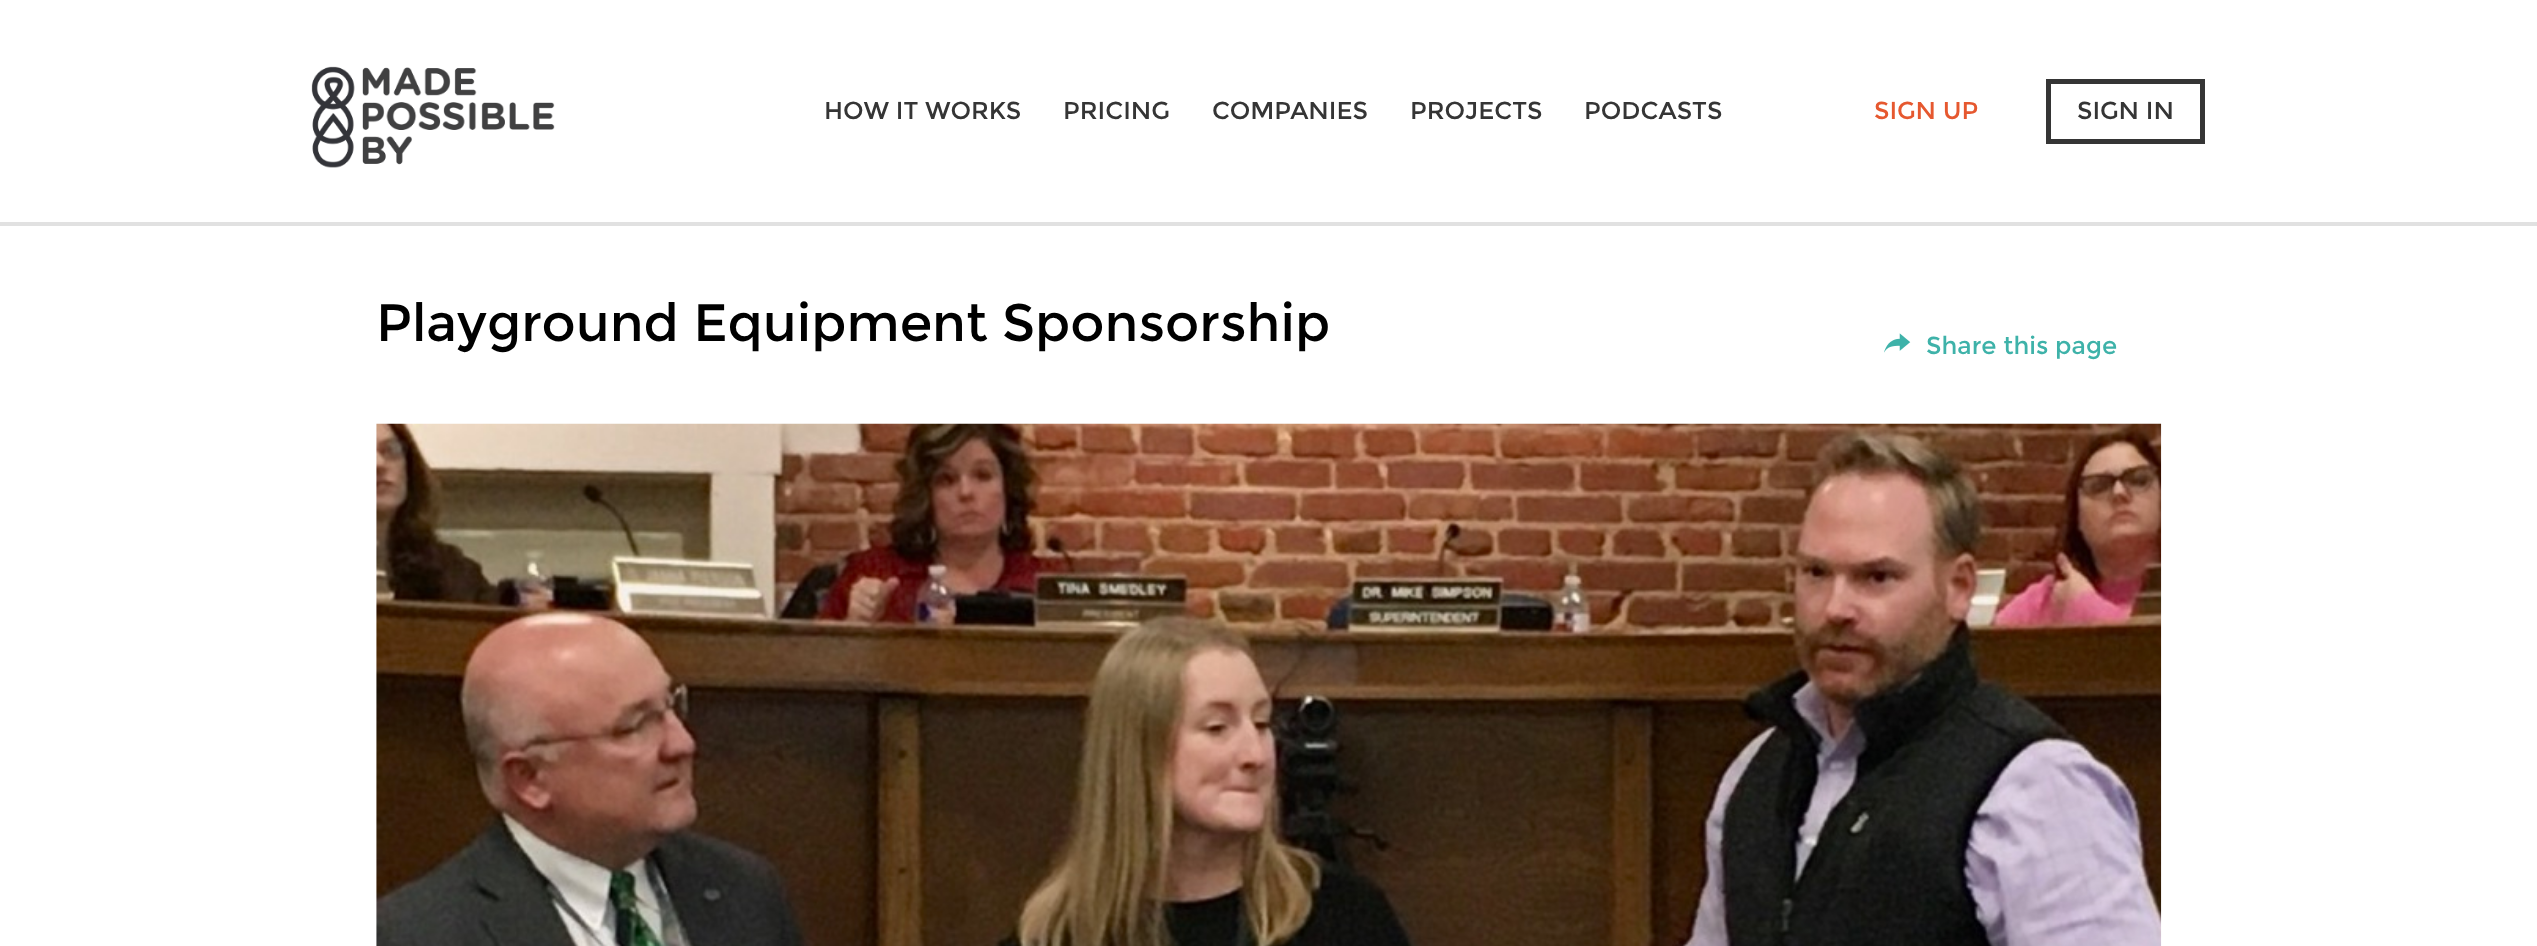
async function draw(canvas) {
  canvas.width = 2537;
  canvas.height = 946;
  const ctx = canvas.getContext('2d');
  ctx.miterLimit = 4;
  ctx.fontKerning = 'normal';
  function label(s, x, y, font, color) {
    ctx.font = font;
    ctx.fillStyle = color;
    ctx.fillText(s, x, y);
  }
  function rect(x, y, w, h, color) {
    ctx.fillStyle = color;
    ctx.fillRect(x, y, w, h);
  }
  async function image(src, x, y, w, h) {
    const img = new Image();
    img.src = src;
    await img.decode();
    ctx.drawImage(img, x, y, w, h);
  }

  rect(0, 0, 2537, 946, '#fff');
  rect(0, 222, 2537, 4, '#e1e1e1');
  await image('assets/img1.png', 311, 66, 244, 102);
  label('HOW IT WORKS', 824, 119, '24.5px Montserrat', '#353535');
  label('PRICING', 1063, 119, '24.5px Montserrat', '#353535');
  label('COMPANIES', 1212, 119, '24.5px Montserrat', '#353535');
  label('PROJECTS', 1410, 119, '24.5px Montserrat', '#353535');
  label('PODCASTS', 1584, 119, '24.5px Montserrat', '#353535');
  label('SIGN UP', 1874, 119, '24.5px Montserrat', '#e6582f');
  ctx.strokeStyle = '#353535';
  ctx.lineWidth = 5;
  ctx.strokeRect(2048.5, 81.5, 154, 60);
  label('SIGN IN', 2077, 119, '24.5px Montserrat', '#353535');
  label('Playground Equipment Sponsorship', 376, 341, '52.5px Montserrat', '#000');
  await image('assets/img2.png', 1884, 333, 27, 20);
  label('Share this page', 1926, 354, '24.5px Montserrat', '#3eb2a9');
  await image('assets/img3.png', 376, 423, 1786, 523);
}

draw(document.querySelector('canvas'));
